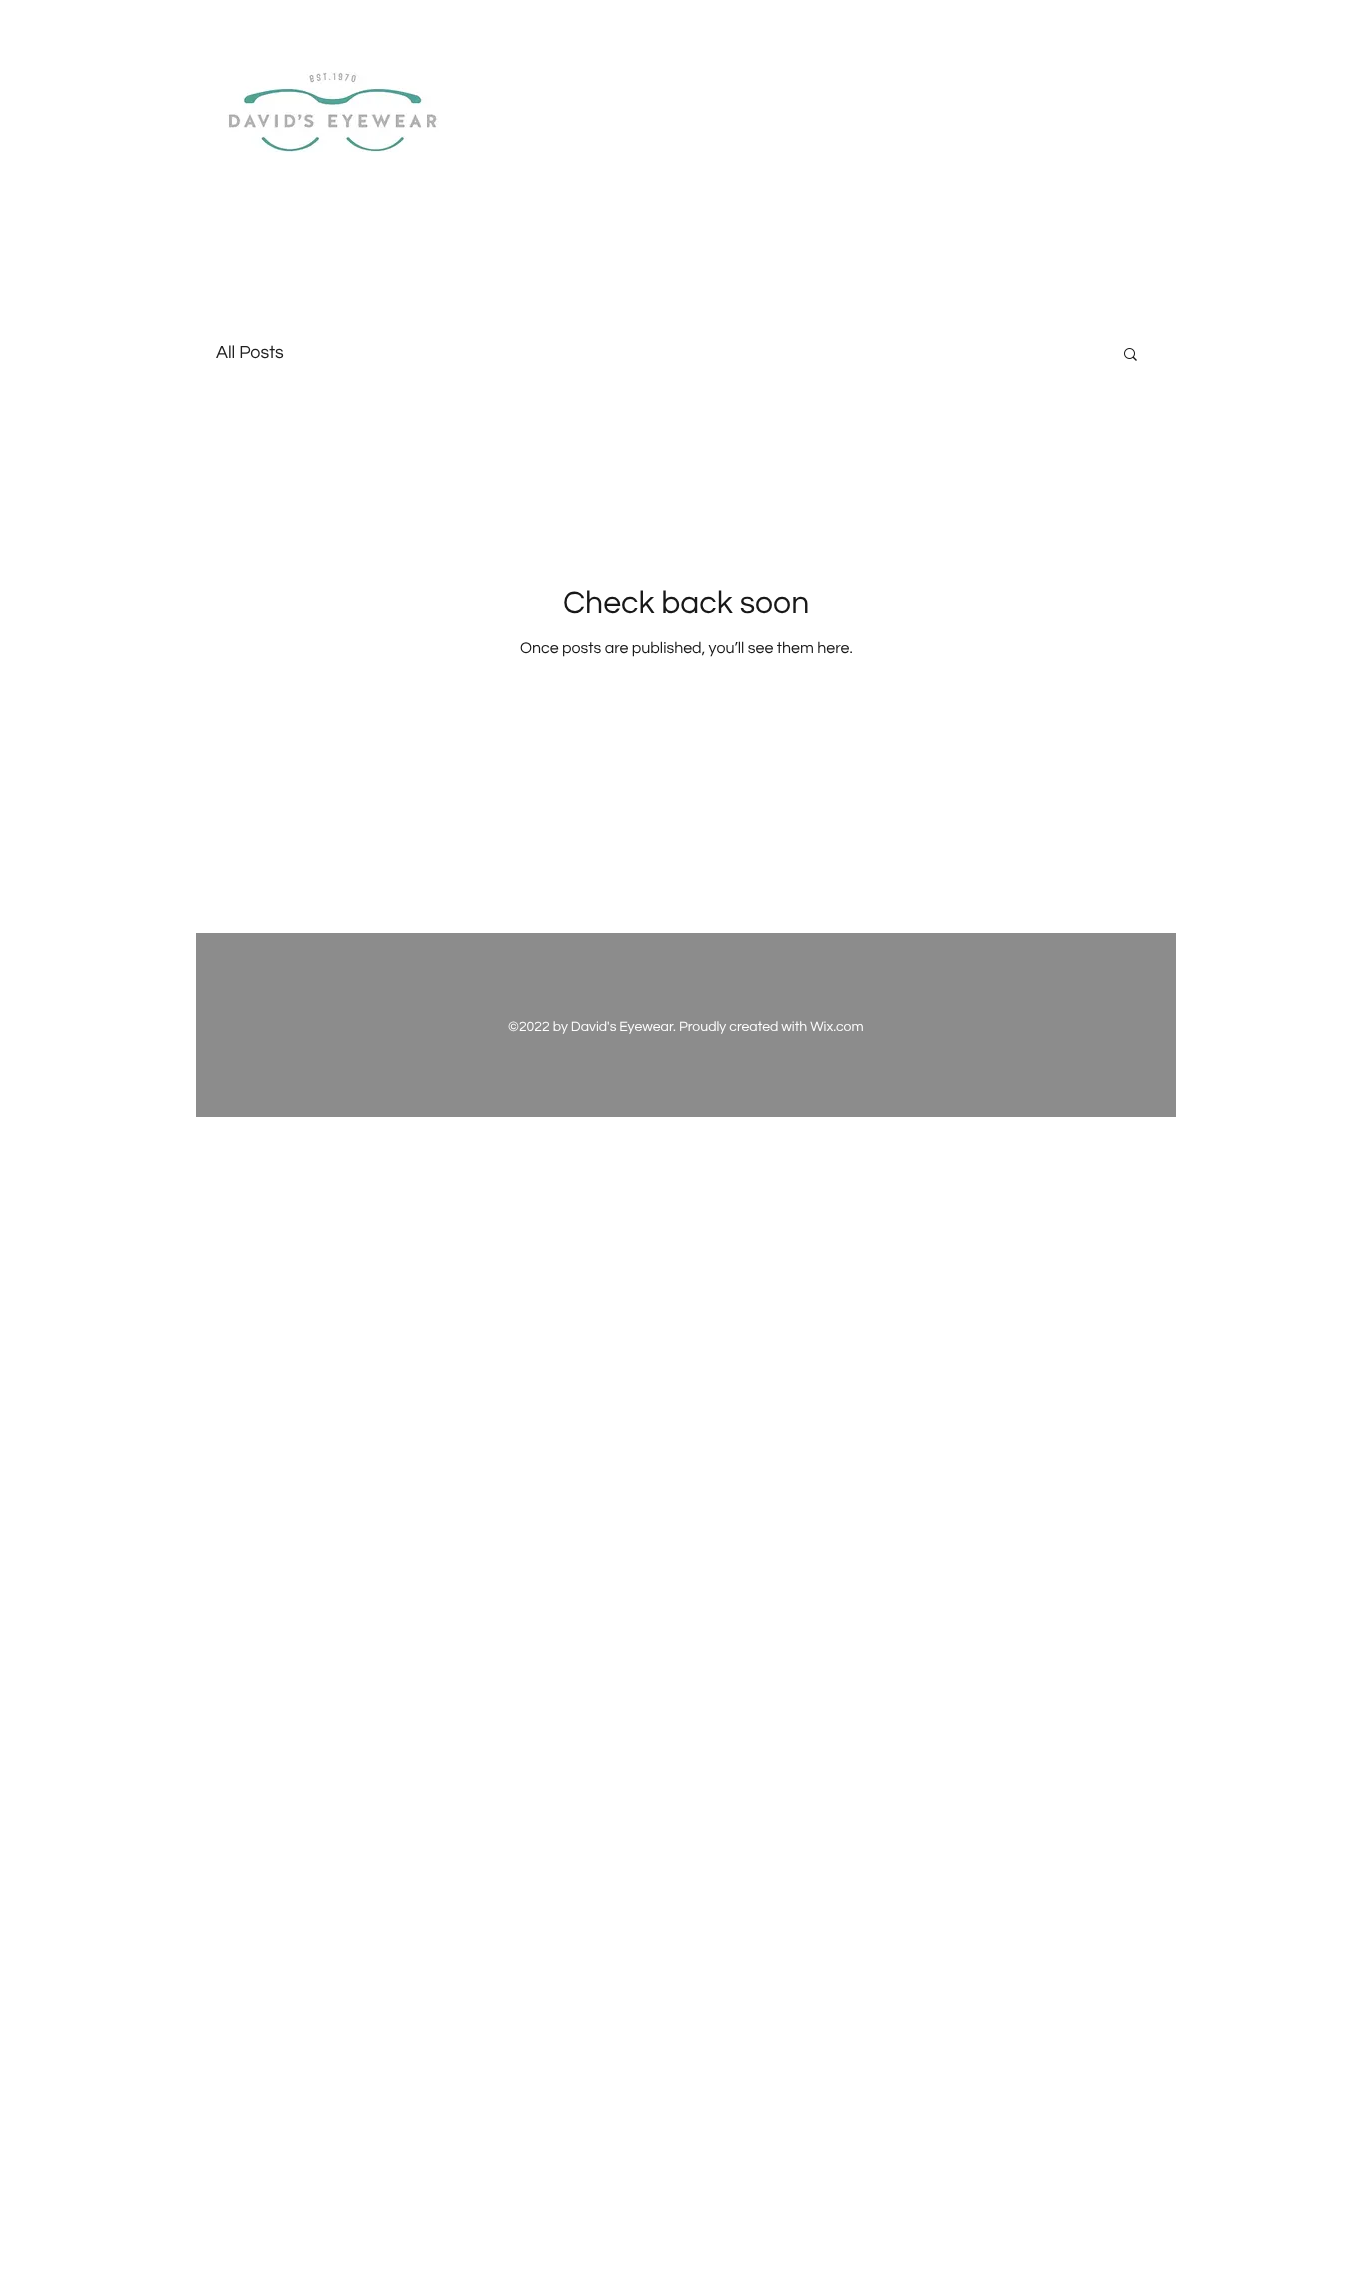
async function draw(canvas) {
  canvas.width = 1372;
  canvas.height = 2273;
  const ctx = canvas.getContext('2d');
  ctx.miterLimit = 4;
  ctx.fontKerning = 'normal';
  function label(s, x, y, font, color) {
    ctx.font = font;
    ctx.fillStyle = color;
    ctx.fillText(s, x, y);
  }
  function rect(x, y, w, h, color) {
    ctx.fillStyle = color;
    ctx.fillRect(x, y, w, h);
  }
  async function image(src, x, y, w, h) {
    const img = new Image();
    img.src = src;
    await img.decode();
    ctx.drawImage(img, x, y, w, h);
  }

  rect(0, 0, 1372, 2273, '#fff');
  await image('assets/img1.png', 227, 72, 212, 81);
  label('All Posts', 216, 358, '18px Questrial', '#202020');
  await image('assets/img2.png', 1124, 348, 13, 13);
  label('Check back soon', 563, 613, '32px Questrial', '#181818');
  label('Once posts are published, you’ll see them here.', 520, 653, '16px Questrial', '#181818');
  rect(196, 933, 980, 184, '#8c8c8c');
  label('©2022 by David\'s Eyewear. Proudly created with Wix.com', 508, 1031, '14px Questrial', '#fff');
}

draw(document.querySelector('canvas'));
